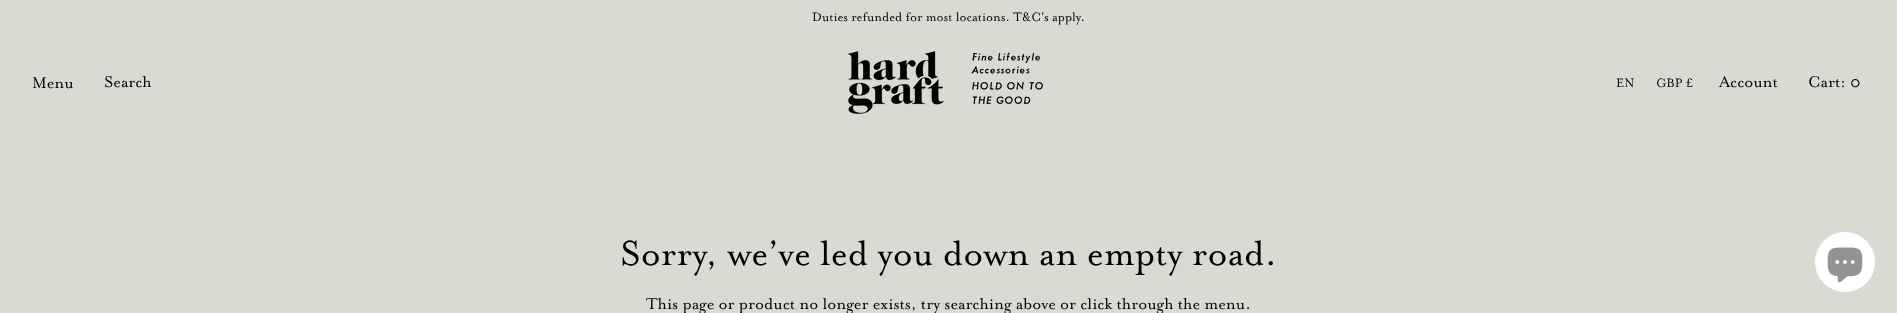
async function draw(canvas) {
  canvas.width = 1897;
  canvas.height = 313;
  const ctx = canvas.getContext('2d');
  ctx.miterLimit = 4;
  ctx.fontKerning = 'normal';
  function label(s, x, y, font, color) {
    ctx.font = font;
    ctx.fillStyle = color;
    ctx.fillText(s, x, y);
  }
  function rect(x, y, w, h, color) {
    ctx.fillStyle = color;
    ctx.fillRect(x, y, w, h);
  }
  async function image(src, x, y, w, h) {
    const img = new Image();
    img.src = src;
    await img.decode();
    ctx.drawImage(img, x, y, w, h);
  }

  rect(0, 0, 1897, 313, '#dadad2');
  label('Duties refunded for most locations. T&C\'s apply.', 812, 21, '14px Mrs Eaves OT', '#000');
  label('Menu', 32, 88, '18px Mrs Eaves OT', '#000');
  label('Search', 104, 87, '18px Mrs Eaves OT', '#000');
  await image('assets/img1.png', 848, 51, 195, 63);
  label('EN', 1616, 87, '14px Mrs Eaves OT', '#000');
  label('GBP £', 1656, 87, '14px Mrs Eaves OT', '#000');
  label('Account', 1719, 87, '18px Mrs Eaves OT', '#000');
  label('Cart: 0', 1808, 87, '18px Mrs Eaves OT', '#000');
  label('Sorry, we’ve led you down an empty road.', 620, 265, '40px Mrs Eaves OT', '#000');
  label('This page or product no longer exists, try searching above or click through the menu.', 646, 309, '18px Mrs Eaves OT', '#000');
  ctx.fillStyle = '#fff';
  ctx.beginPath();
  ctx.arc(1845, 262, 30, 0, 2 * Math.PI);
  ctx.fill();
  await image('assets/img2.png', 1827, 247, 36, 36);
}

draw(document.querySelector('canvas'));
